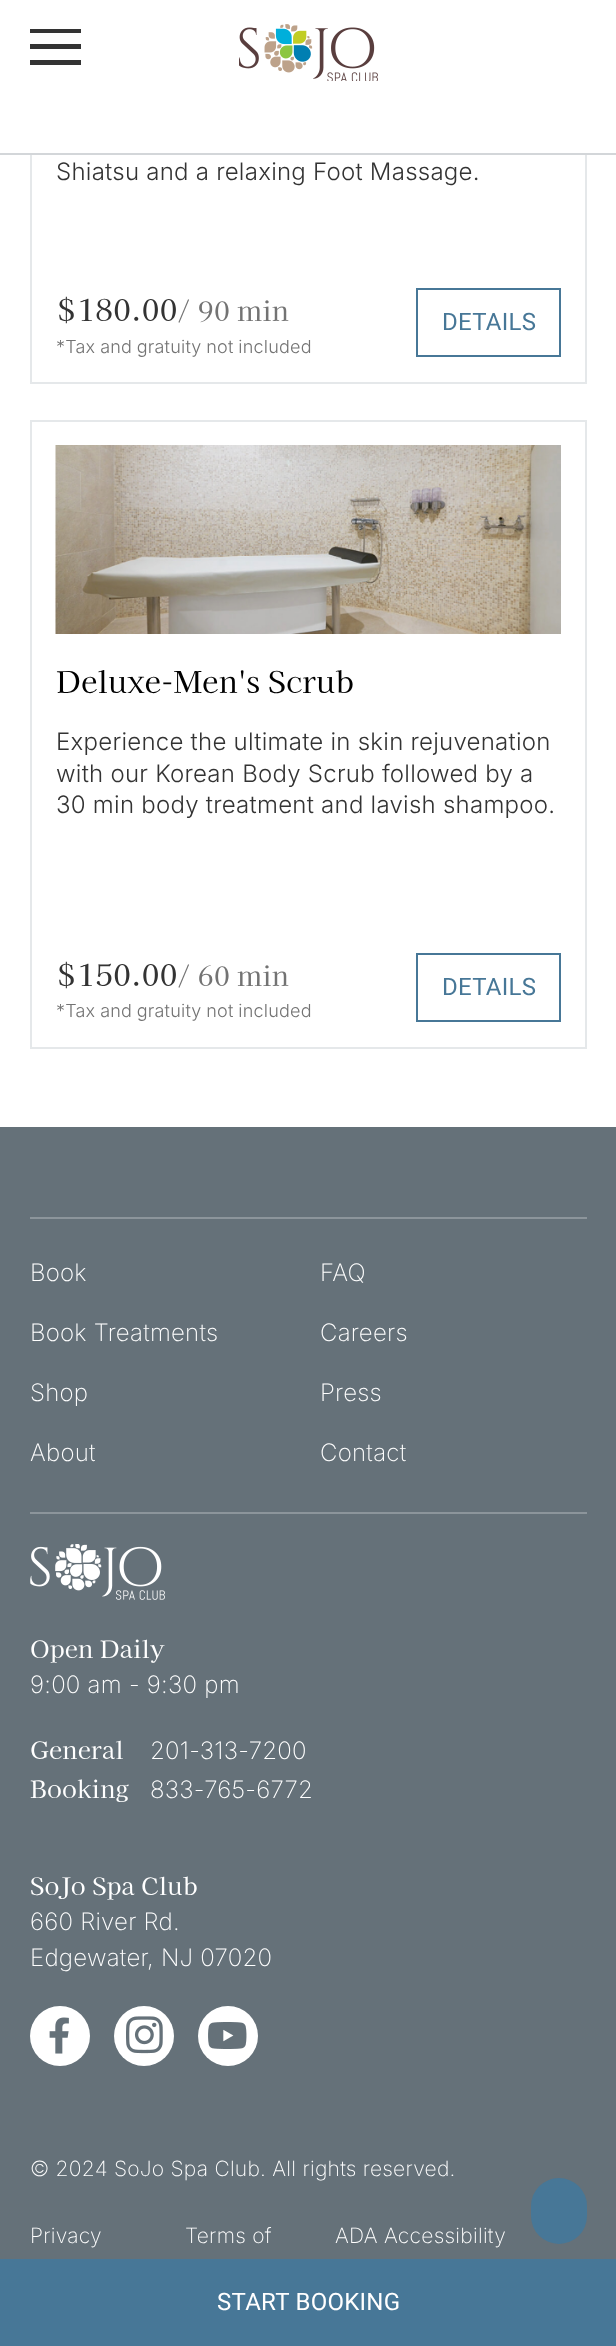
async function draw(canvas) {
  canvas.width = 616;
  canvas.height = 2346;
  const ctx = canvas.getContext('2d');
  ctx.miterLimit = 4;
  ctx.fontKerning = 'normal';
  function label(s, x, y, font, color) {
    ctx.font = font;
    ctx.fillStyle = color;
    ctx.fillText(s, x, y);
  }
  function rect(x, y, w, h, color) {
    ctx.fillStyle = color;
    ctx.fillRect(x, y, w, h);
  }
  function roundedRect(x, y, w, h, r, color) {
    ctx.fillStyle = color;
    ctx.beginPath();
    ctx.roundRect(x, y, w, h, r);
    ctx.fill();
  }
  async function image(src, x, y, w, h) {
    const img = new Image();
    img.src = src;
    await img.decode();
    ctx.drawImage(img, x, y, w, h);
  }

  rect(0, 0, 616, 2346, '#fff');
  ctx.strokeStyle = '#e5e8ea';
  ctx.lineWidth = 2;
  ctx.strokeRect(31, -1, 555, 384);
  rect(30, 0, 557, 153, '#fff');
  rect(30, 29, 51, 4, '#333');
  rect(30, 44, 51, 5, '#333');
  rect(30, 60, 51, 5, '#333');
  await image('assets/img1.png', 239, 24, 139, 57);
  rect(0, 153, 616, 2, '#d3d6d9');
  ctx.letterSpacing = '0.25px';
  label('Shiatsu and a relaxing Foot Massage.', 56, 180, '300 24px Inter', '#333');
  label('$180.00', 56, 321, '30px Kaisei HarunoUmi', '#333');
  label('/ 90 min', 177, 321, '27px Kaisei HarunoUmi', '#737373');
  ctx.letterSpacing = '0.2px';
  ctx.wordSpacing = '-0.5px';
  label('*Tax and gratuity not included', 56, 353, '300 18px Inter', '#737373');
  ctx.strokeStyle = '#477797';
  ctx.strokeRect(417, 289, 143, 67);
  ctx.letterSpacing = '0.25px';
  ctx.wordSpacing = '0px';
  label('DETAILS', 442, 330, '24px Roboto', '#477797');
  ctx.strokeStyle = '#e5e8ea';
  ctx.strokeRect(31, 421, 555, 627);
  await image('assets/img2.png', 55, 445, 506, 189);
  label('Deluxe-Men\'s Scrub', 56, 693, '30px Kaisei HarunoUmi', '#000');
  label('Experience the ultimate in skin rejuvenation', 56, 750, '300 24px Inter', '#333');
  label('with our Korean Body Scrub followed by a', 56, 782, '300 24px Inter', '#333');
  label('30 min body treatment and lavish shampoo.', 56, 813, '300 24px Inter', '#333');
  label('$150.00', 56, 986, '30px Kaisei HarunoUmi', '#333');
  label('/ 60 min', 177, 986, '27px Kaisei HarunoUmi', '#737373');
  ctx.letterSpacing = '0.2px';
  ctx.wordSpacing = '-0.5px';
  label('*Tax and gratuity not included', 56, 1017, '300 18px Inter', '#737373');
  ctx.strokeStyle = '#477797';
  ctx.strokeRect(417, 954, 143, 67);
  ctx.letterSpacing = '0.25px';
  ctx.wordSpacing = '0px';
  label('DETAILS', 442, 995, '24px Roboto', '#477797');
  rect(0, 2259, 616, 87, '#477797');
  label('START BOOKING', 217, 2310, '24px Roboto', '#fff');
  rect(0, 1127, 616, 1132, '#657179');
  rect(30, 1217, 557, 2, '#8c959b');
  label('Book', 30, 1281, '200 24px Inter', '#fff');
  label('FAQ', 320, 1281, '200 24px Inter', '#fff');
  label('Book Treatments', 30, 1341, '200 24px Inter', '#fff');
  label('Careers', 320, 1341, '200 24px Inter', '#fff');
  label('Shop', 30, 1401, '200 24px Inter', '#fff');
  label('Press', 320, 1401, '200 24px Inter', '#fff');
  label('About', 30, 1461, '200 24px Inter', '#fff');
  label('Contact', 320, 1461, '200 24px Inter', '#fff');
  rect(30, 1512, 557, 2, '#8c959b');
  await image('assets/img3.png', 30, 1544, 135, 56);
  label('Open Daily', 30, 1658, '24px Kaisei HarunoUmi', '#fff');
  label('9:00 am - 9:30 pm', 30, 1693, '200 24px Inter', '#fff');
  label('General', 30, 1759, '24px Kaisei HarunoUmi', '#fff');
  label('201-313-7200', 150, 1759, '200 24px Inter', '#fff');
  label('Booking', 30, 1798, '24px Kaisei HarunoUmi', '#fff');
  label('833-765-6772', 150, 1798, '200 24px Inter', '#fff');
  label('SoJo Spa Club', 30, 1895, '24px Kaisei HarunoUmi', '#fff');
  label('660 River Rd.', 30, 1930, '200 24px Inter', '#fff');
  label('Edgewater', 30, 1966, '200 24px Inter', '#fff');
  label(', NJ 07020', 147, 1966, '200 24px Inter', '#fff');
  ctx.beginPath();
  ctx.arc(60, 2036, 30, 0, 2 * Math.PI);
  ctx.fill();
  await image('assets/img4.png', 49, 2017, 20, 37);
  ctx.beginPath();
  ctx.arc(144, 2036, 30, 0, 2 * Math.PI);
  ctx.fill();
  await image('assets/img5.png', 126, 2016, 37, 38);
  ctx.beginPath();
  ctx.arc(228, 2036, 30, 0, 2 * Math.PI);
  ctx.fill();
  await image('assets/img6.png', 208, 2022, 39, 27);
  label('© 2024 SoJo Spa Club. All rights reserved.', 30, 2176, '200 21px Inter', '#fff');
  label('Privacy', 30, 2243, '200 21px Inter', '#fff');
  label('Terms of', 185, 2243, '200 21px Inter', '#fff');
  label('ADA Accessibility', 335, 2243, '200 21px Inter', '#fff');
  roundedRect(531, 2178, 56, 66, 28, '#477797');
}

draw(document.querySelector('canvas'));
